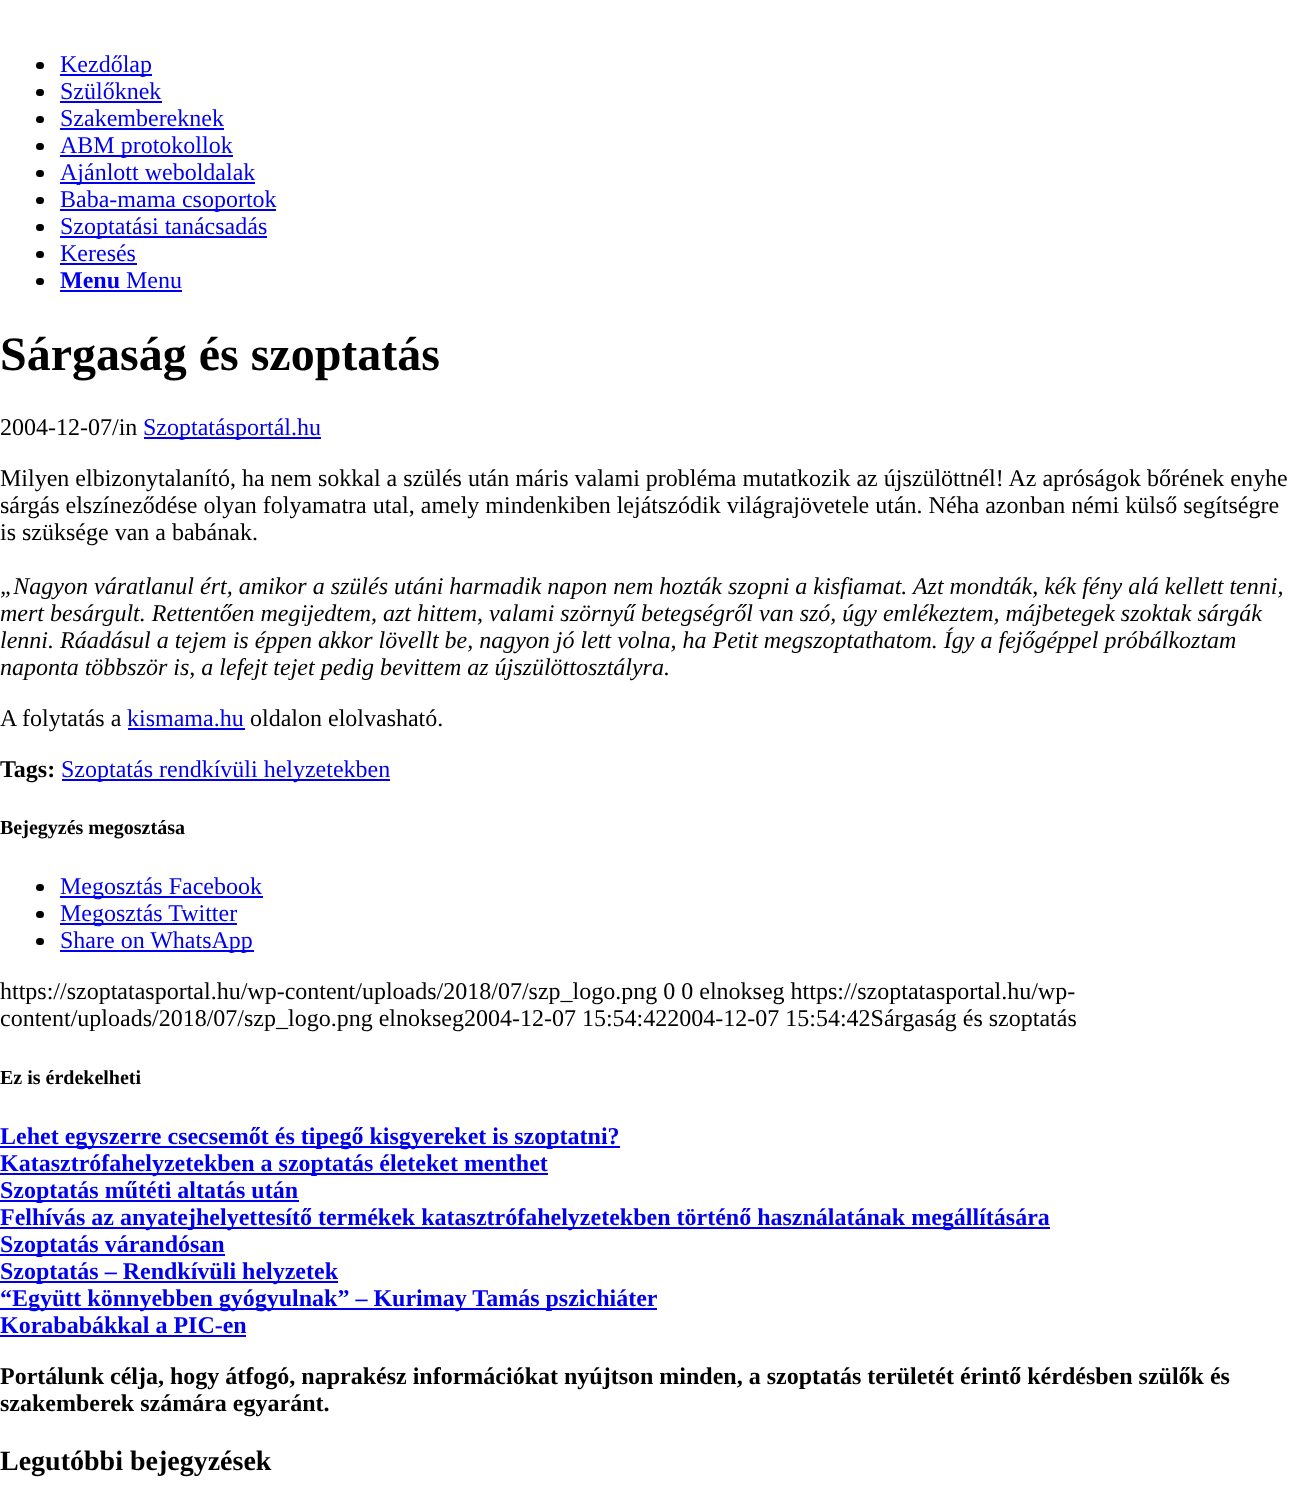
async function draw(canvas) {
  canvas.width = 1294;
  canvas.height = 1486;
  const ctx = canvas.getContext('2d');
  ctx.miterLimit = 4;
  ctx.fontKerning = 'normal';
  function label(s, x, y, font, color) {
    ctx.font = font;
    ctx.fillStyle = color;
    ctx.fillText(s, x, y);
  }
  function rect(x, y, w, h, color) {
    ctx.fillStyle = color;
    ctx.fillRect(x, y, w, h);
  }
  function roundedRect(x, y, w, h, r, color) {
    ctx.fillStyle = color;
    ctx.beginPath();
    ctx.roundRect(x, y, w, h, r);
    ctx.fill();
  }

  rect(0, 0, 1294, 1486, '#fff');
  roundedRect(36, 62, 8, 7, 3.5, '#000');
  rect(60, 74, 92, 2, '#00e');
  label('Kezdőlap', 60, 72, '24px Liberation Serif', '#00e');
  roundedRect(36, 89, 8, 7, 3.5, '#000');
  label('Szülőknek', 60, 99, '24px Liberation Serif', '#00e');
  rect(60, 101, 102, 2, '#00e');
  roundedRect(36, 116, 8, 7, 3.5, '#000');
  label('Szakembereknek', 60, 126, '24px Liberation Serif', '#00e');
  rect(60, 128, 164, 2, '#00e');
  roundedRect(36, 143, 8, 7, 3.5, '#000');
  rect(60, 155, 173, 2, '#00e');
  label('ABM protokollok', 60, 153, '24px Liberation Serif', '#00e');
  roundedRect(36, 170, 8, 7, 3.5, '#000');
  rect(60, 182, 195, 2, '#00e');
  label('Ajánlott weboldalak', 60, 180, '24px Liberation Serif', '#00e');
  roundedRect(36, 197, 8, 7, 3.5, '#000');
  rect(60, 209, 216, 2, '#00e');
  label('Baba-mama csoportok', 60, 207, '24px Liberation Serif', '#00e');
  roundedRect(36, 224, 8, 7, 3.5, '#000');
  rect(60, 236, 207, 2, '#00e');
  label('Szoptatási tanácsadás', 60, 234, '24px Liberation Serif', '#00e');
  roundedRect(36, 251, 8, 7, 3.5, '#000');
  label('Keresés', 60, 261, '24px Liberation Serif', '#00e');
  rect(60, 263, 77, 2, '#00e');
  roundedRect(36, 278, 8, 7, 3.5, '#000');
  label('Menu', 60, 288, 'bold 24px Liberation Serif', '#00e');
  rect(60, 290, 122, 2, '#00e');
  label('Menu', 126, 288, '24px Liberation Serif', '#00e');
  label('Sárgaság és szoptatás', 0, 370, 'bold 48px Liberation Serif', '#000');
  label('2004-12-07/in', 0, 435, '24px Liberation Serif', '#000');
  rect(144, 437, 177, 2, '#00e');
  label('Szoptatásportál.hu', 143, 435, '24px Liberation Serif', '#00e');
  label('Milyen elbizonytalanító, ha nem sokkal a szülés után máris valami probléma mutatkozik az újszülöttnél! Az apróságok bőrének enyhe', 0, 486, '24px Liberation Serif', '#000');
  label('sárgás elszíneződése olyan folyamatra utal, amely mindenkiben lejátszódik világrajövetele után. Néha azonban némi külső segítségre', 0, 513, '24px Liberation Serif', '#000');
  label('is szüksége van a babának.', 0, 540, '24px Liberation Serif', '#000');
  label('„Nagyon váratlanul ért, amikor a szülés utáni harmadik napon nem hozták szopni a kisfiamat. Azt mondták, kék fény alá kellett tenni,', 0, 594, 'italic 24px Liberation Serif', '#000');
  label('mert besárgult. Rettentően megijedtem, azt hittem, valami szörnyű betegségről van szó, úgy emlékeztem, májbetegek szoktak sárgák', 0, 621, 'italic 24px Liberation Serif', '#000');
  label('lenni. Ráadásul a tejem is éppen akkor lövellt be, nagyon jó lett volna, ha Petit megszoptathatom. Így a fejőgéppel próbálkoztam', 0, 648, 'italic 24px Liberation Serif', '#000');
  label('naponta többször is, a lefejt tejet pedig bevittem az újszülöttosztályra.', 0, 675, 'italic 24px Liberation Serif', '#000');
  label('A folytatás a', 0, 726, '24px Liberation Serif', '#000');
  label('kismama.hu', 127, 726, '24px Liberation Serif', '#00e');
  rect(128, 728, 117, 2, '#00e');
  label('oldalon elolvasható.', 250, 726, '24px Liberation Serif', '#000');
  label('Tags:', 0, 777, 'bold 24px Liberation Serif', '#000');
  rect(62, 779, 328, 2, '#00e');
  label('Szoptatás rendkívüli helyzetekben', 61, 777, '24px Liberation Serif', '#00e');
  label('Bejegyzés megosztása', 0, 834, 'bold 20px Liberation Serif', '#000');
  roundedRect(36, 884, 8, 7, 3.5, '#000');
  rect(60, 896, 203, 2, '#00e');
  label('Megosztás Facebook', 60, 894, '24px Liberation Serif', '#00e');
  roundedRect(36, 911, 8, 7, 3.5, '#000');
  rect(60, 923, 177, 2, '#00e');
  label('Megosztás Twitter', 60, 921, '24px Liberation Serif', '#00e');
  roundedRect(36, 938, 8, 7, 3.5, '#000');
  rect(60, 950, 194, 2, '#00e');
  label('Share on WhatsApp', 60, 948, '24px Liberation Serif', '#00e');
  label('https://szoptatasportal.hu/wp-content/uploads/2018/07/szp_logo.png 0 0 elnokseg https://szoptatasportal.hu/wp-', 0, 999, '24px Liberation Serif', '#000');
  label('content/uploads/2018/07/szp_logo.png elnokseg2004-12-07 15:54:422004-12-07 15:54:42Sárgaság és szoptatás', 0, 1026, '24px Liberation Serif', '#000');
  label('Ez is érdekelheti', 0, 1084, 'bold 20px Liberation Serif', '#000');
  rect(0, 1146, 620, 2, '#00e');
  label('Lehet egyszerre csecsemőt és tipegő kisgyereket is szoptatni?', 0, 1144, 'bold 24px Liberation Serif', '#00e');
  rect(0, 1173, 548, 2, '#00e');
  label('Katasztrófahelyzetekben a szoptatás életeket menthet', 0, 1171, 'bold 24px Liberation Serif', '#00e');
  rect(0, 1200, 299, 2, '#00e');
  label('Szoptatás műtéti altatás után', 0, 1198, 'bold 24px Liberation Serif', '#00e');
  rect(0, 1227, 1050, 2, '#00e');
  label('Felhívás az anyatejhelyettesítő termékek katasztrófahelyzetekben történő használatának megállítására', 0, 1225, 'bold 24px Liberation Serif', '#00e');
  rect(0, 1254, 225, 2, '#00e');
  label('Szoptatás várandósan', 0, 1252, 'bold 24px Liberation Serif', '#00e');
  rect(0, 1281, 338, 2, '#00e');
  label('Szoptatás – Rendkívüli helyzetek', 0, 1279, 'bold 24px Liberation Serif', '#00e');
  rect(0, 1308, 657, 2, '#00e');
  label('“Együtt könnyebben gyógyulnak” – Kurimay Tamás pszichiáter', 0, 1306, 'bold 24px Liberation Serif', '#00e');
  label('Korababákkal a PIC-en', 0, 1333, 'bold 24px Liberation Serif', '#00e');
  rect(0, 1335, 246, 2, '#00e');
  label('Portálunk célja, hogy átfogó, naprakész információkat nyújtson minden, a szoptatás területét érintő kérdésben szülők és', 0, 1384, 'bold 24px Liberation Serif', '#000');
  label('szakemberek számára egyaránt.', 0, 1411, 'bold 24px Liberation Serif', '#000');
  label('Legutóbbi bejegyzések', 0, 1470, 'bold 28px Liberation Serif', '#000');
}

draw(document.querySelector('canvas'));
